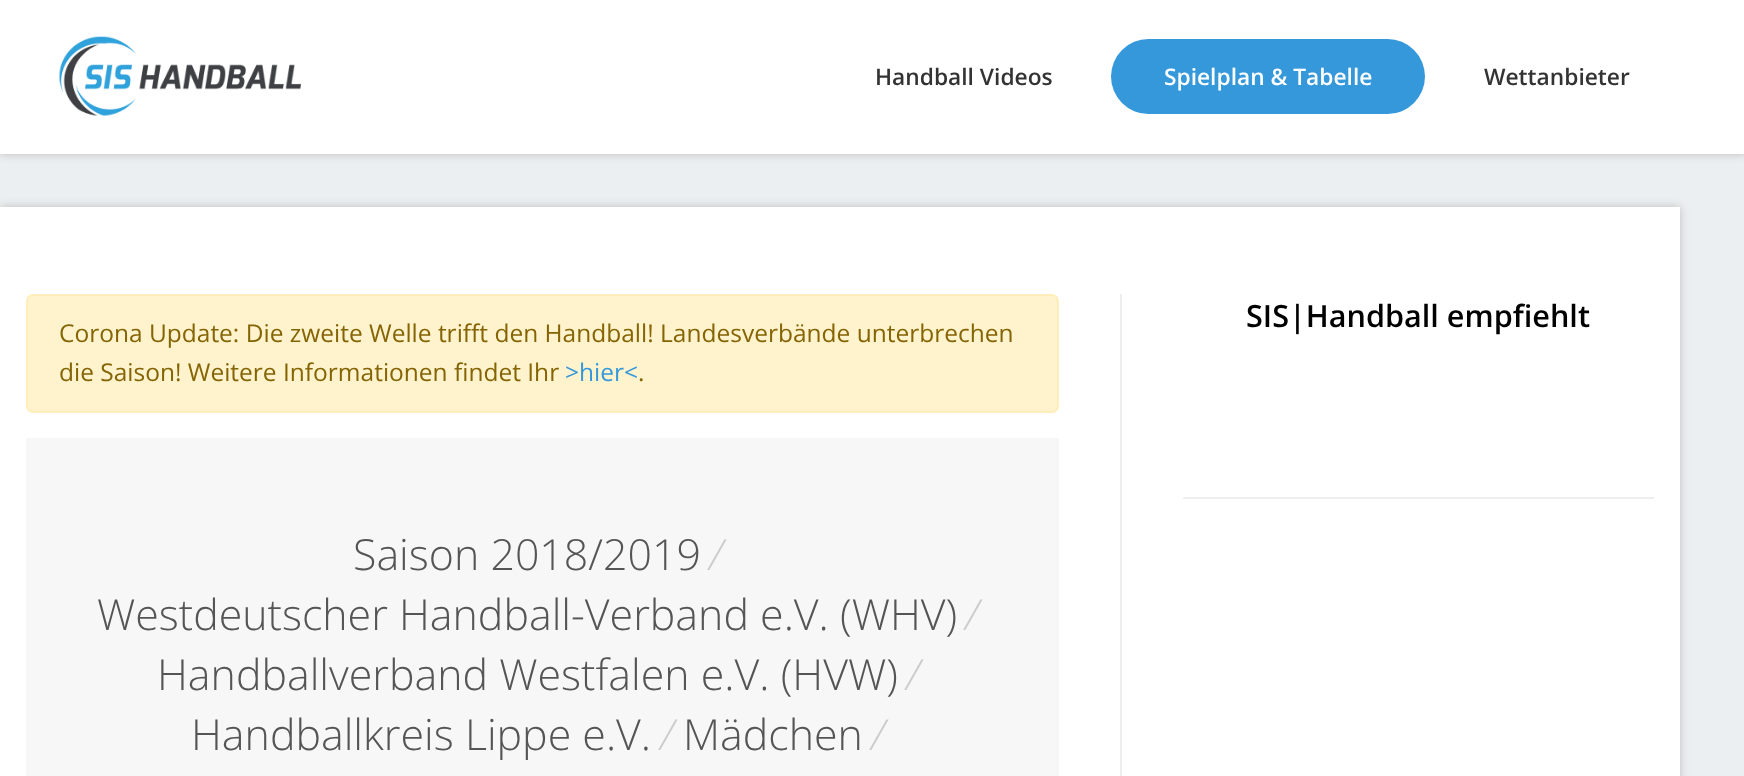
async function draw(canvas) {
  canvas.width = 1744;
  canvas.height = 776;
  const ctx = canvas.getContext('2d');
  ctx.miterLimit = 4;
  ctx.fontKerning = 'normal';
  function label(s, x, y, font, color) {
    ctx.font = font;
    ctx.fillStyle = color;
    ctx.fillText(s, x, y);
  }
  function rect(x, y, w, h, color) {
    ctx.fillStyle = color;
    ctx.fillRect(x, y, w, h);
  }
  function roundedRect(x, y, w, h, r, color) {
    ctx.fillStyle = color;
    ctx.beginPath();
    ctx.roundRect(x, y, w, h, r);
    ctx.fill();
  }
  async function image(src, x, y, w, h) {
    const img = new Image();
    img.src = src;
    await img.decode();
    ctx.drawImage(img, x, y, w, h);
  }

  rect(0, 0, 1744, 776, '#eceff1');
  ctx.fillStyle = '#bbb';
  ctx.filter = 'blur(4.5px)';
  ctx.beginPath();
  ctx.rect(0, 0, 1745, 154);
  ctx.fill();
  ctx.filter = 'none';
  rect(0, 0, 1744, 154, '#fff');
  await image('assets/img1.png', 59, 36, 242, 80);
  label('Handball Videos', 875, 85, '600 22.75px Open Sans', '#333');
  roundedRect(1111, 39, 314, 75, 37.5, '#3498db');
  label('Spielplan & Tabelle', 1164, 85, '600 22.75px Open Sans', '#fff');
  label('Wettanbieter', 1484, 85, '600 22.75px Open Sans', '#333');
  ctx.fillStyle = '#bbb';
  ctx.filter = 'blur(4.5px)';
  ctx.beginPath();
  ctx.rect(0, 207, 1680, 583);
  ctx.fill();
  ctx.filter = 'none';
  rect(0, 207, 1680, 569, '#fff');
  rect(1120, 294, 2, 482, '#eee');
  label('SIS|Handball empfiehlt', 1246, 327, '600 30.6px Open Sans', '#000');
  rect(1183, 497, 471, 2, '#eee');
  ctx.fillStyle = '#fff3cd';
  ctx.beginPath();
  ctx.roundRect(27, 295, 1031, 117, 6);
  ctx.fill();
  ctx.strokeStyle = '#ffeeba';
  ctx.lineWidth = 2;
  ctx.stroke();
  label('Corona Update: Die zweite Welle trifft den Handball! Landesverbände unterbrechen', 59, 342, '24.5px Open Sans', '#856404');
  label('die Saison! Weitere Informationen findet Ihr', 59, 381, '24.5px Open Sans', '#856404');
  label('>hier<', 565, 381, '24.5px Open Sans', '#3498db');
  label('.', 638, 381, '24.5px Open Sans', '#856404');
  rect(26, 438, 1033, 338, '#f7f7f7');
  label('Saison 2018/2019', 353, 570, '300 42.9px Open Sans', '#555');
  label('/', 709, 570, 'italic 300 42.9px Open Sans', '#ccc');
  label('Westdeutscher Handball-Verband e.V. (WHV)', 97, 630, '300 42.9px Open Sans', '#555');
  label('/', 965, 630, 'italic 300 42.9px Open Sans', '#ccc');
  label('Handballverband Westfalen e.V. (HVW)', 157, 690, '300 42.9px Open Sans', '#555');
  label('/', 906, 690, 'italic 300 42.9px Open Sans', '#ccc');
  label('Handballkreis Lippe e.V.', 191, 750, '300 42.9px Open Sans', '#555');
  label('/', 660, 750, 'italic 300 42.9px Open Sans', '#ccc');
  label('Mädchen', 683, 750, '300 42.9px Open Sans', '#555');
  label('/', 871, 750, 'italic 300 42.9px Open Sans', '#ccc');
}

draw(document.querySelector('canvas'));
